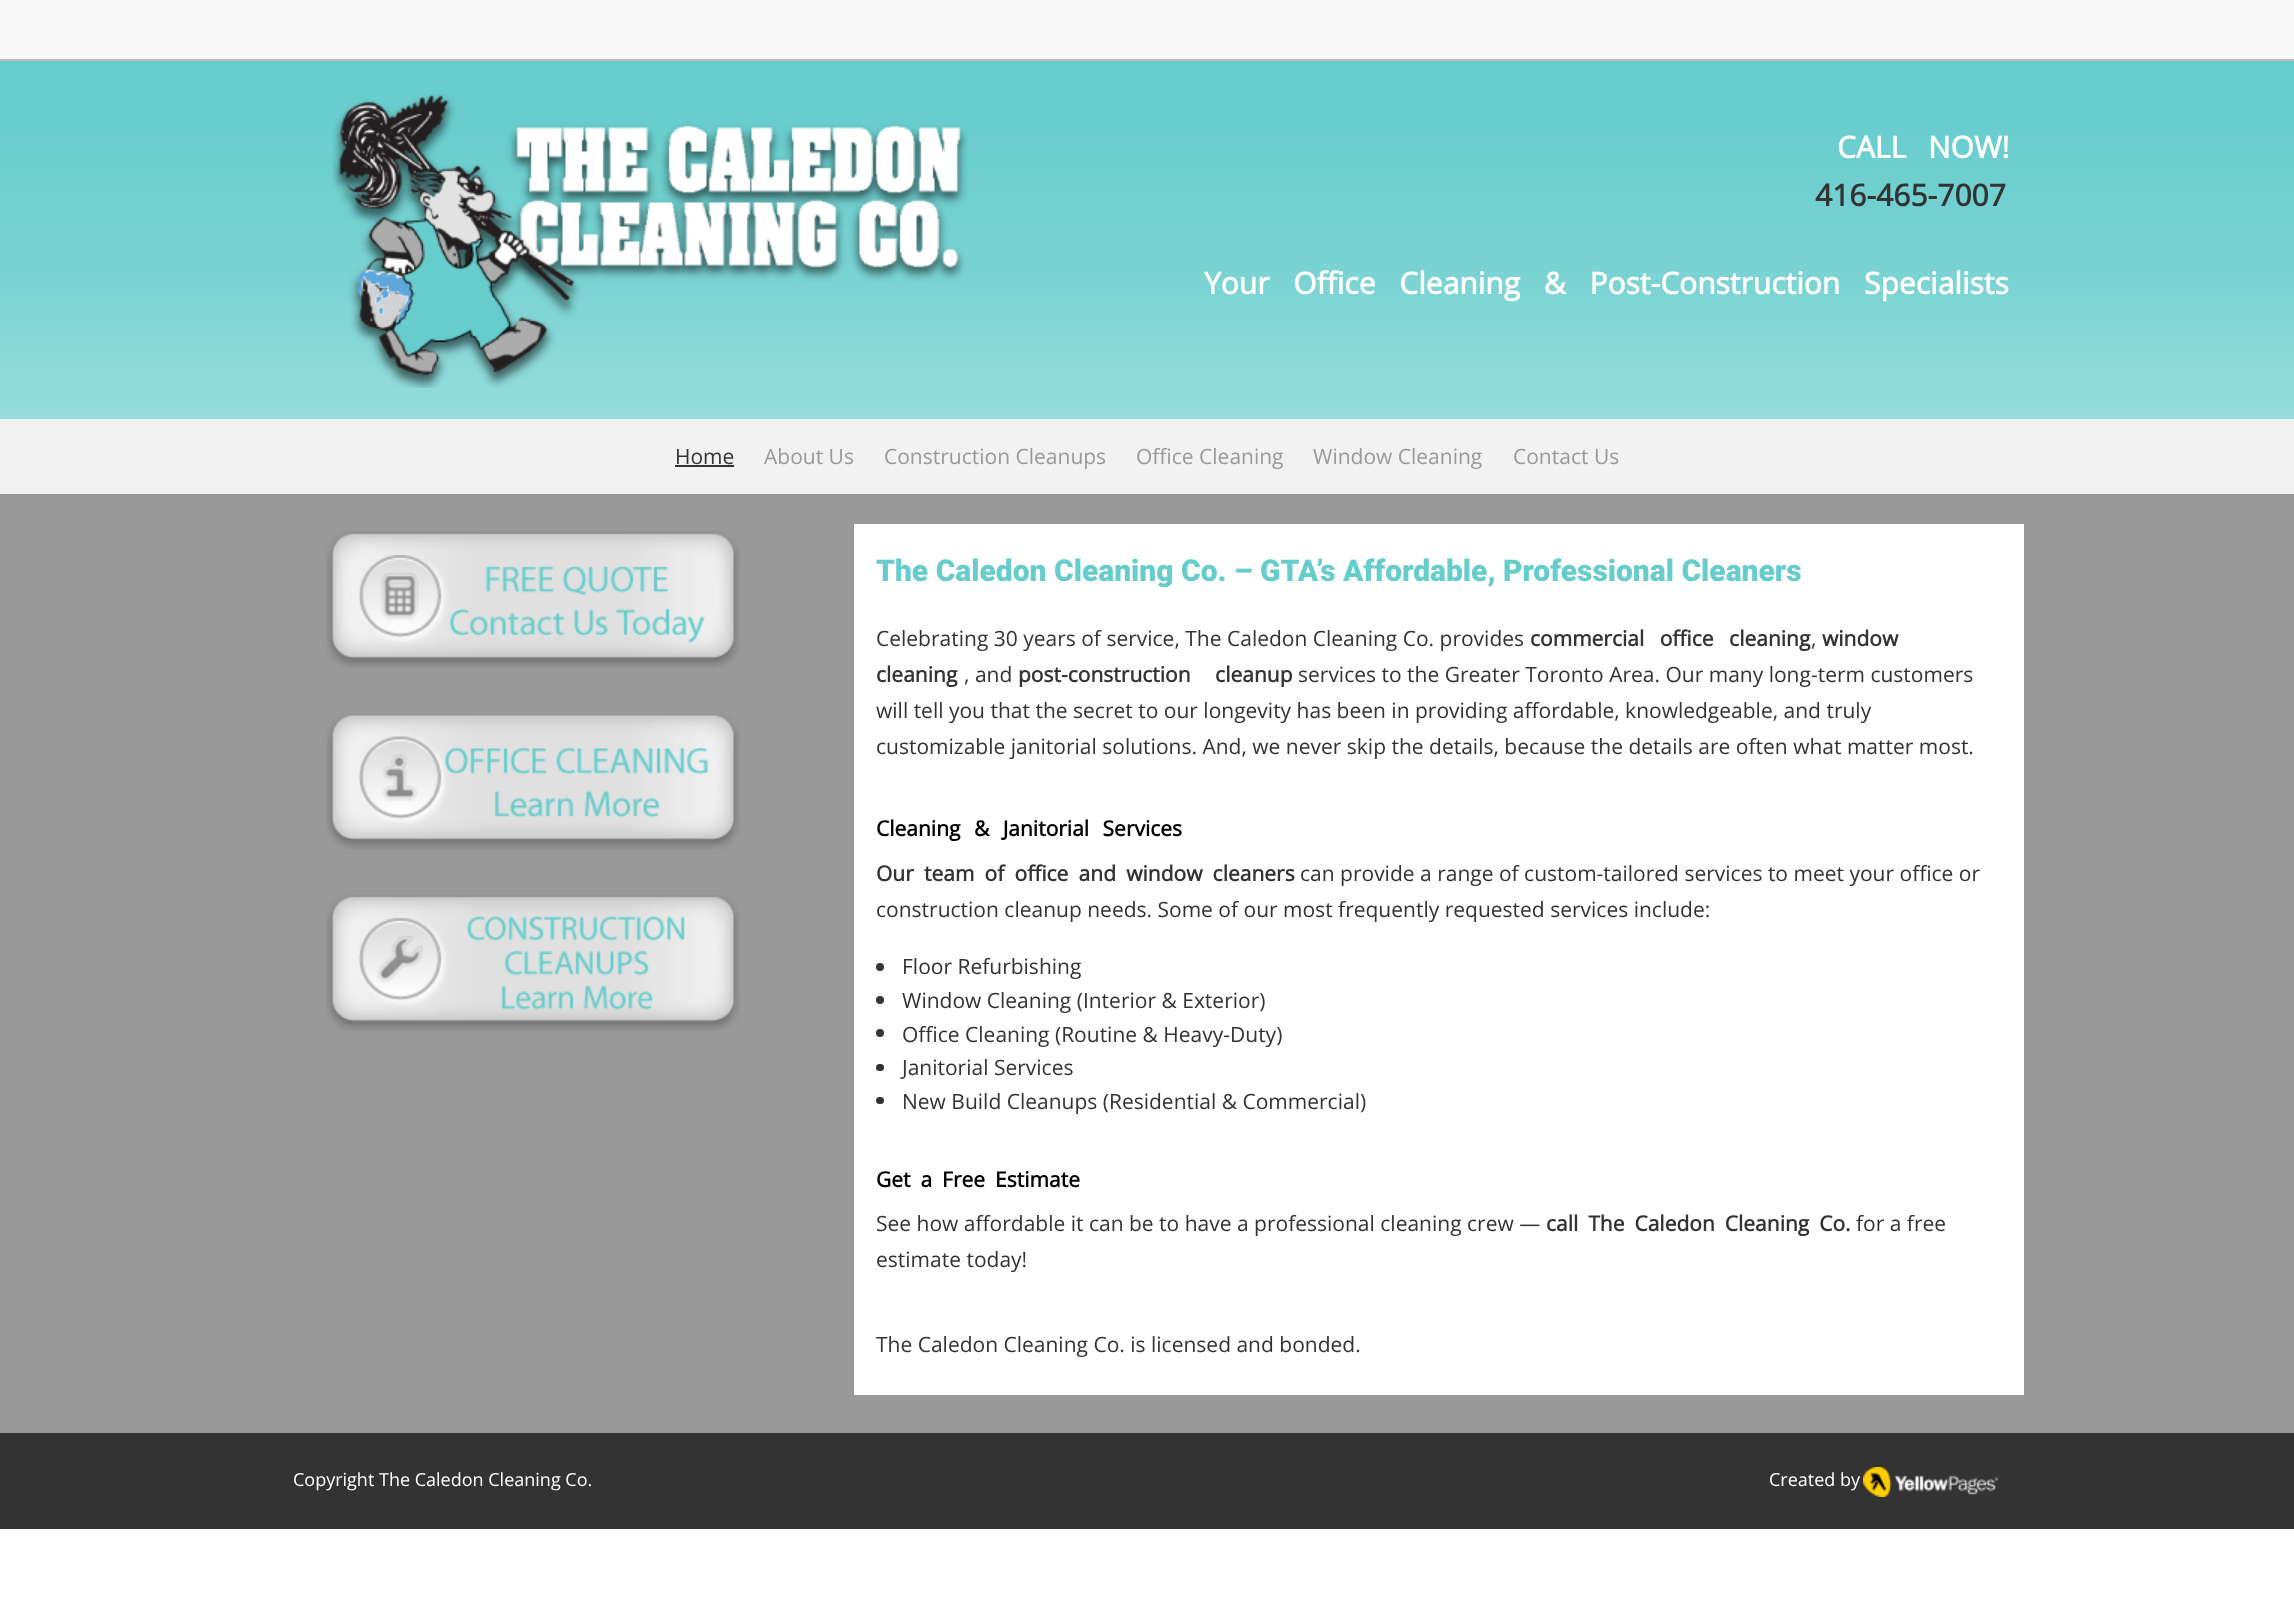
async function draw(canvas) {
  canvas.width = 2294;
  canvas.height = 1601;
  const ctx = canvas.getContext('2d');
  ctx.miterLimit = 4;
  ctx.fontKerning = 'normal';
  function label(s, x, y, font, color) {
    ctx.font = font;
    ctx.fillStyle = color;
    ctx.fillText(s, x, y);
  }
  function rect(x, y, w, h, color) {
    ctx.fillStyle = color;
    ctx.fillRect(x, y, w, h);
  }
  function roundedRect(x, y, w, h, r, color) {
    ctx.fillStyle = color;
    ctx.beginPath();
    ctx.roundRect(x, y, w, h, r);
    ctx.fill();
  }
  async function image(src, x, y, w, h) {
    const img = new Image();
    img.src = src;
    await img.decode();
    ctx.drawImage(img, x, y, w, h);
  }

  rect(0, 0, 2294, 1601, '#fff');
  await image('assets/img1.png', 0, 61, 2294, 358);
  rect(0, 0, 2294, 59, '#f8f8f8');
  rect(0, 59, 2294, 2, '#bfbfbf');
  await image('assets/img2.png', 332, 94, 636, 294);
  ctx.wordSpacing = '14px';
  label('CALL NOW!', 1837, 158, 'bold 30px Open Sans', '#fff');
  ctx.wordSpacing = '0px';
  label('416-465-7007', 1815, 206, 'bold 30px Open Sans', '#333');
  ctx.wordSpacing = '16px';
  label('Your Office Cleaning & Post-Construction Specialists', 1204, 294, 'bold 30px Open Sans', '#fff');
  rect(0, 419, 2294, 75, '#f2f2f2');
  ctx.wordSpacing = '0px';
  label('Home', 675, 464, '21px Open Sans', '#333');
  rect(675, 465, 59, 2, '#333');
  label('About Us', 764, 464, '21px Open Sans', '#999');
  label('Construction Cleanups', 884, 464, '21px Open Sans', '#999');
  label('Office Cleaning', 1136, 464, '21px Open Sans', '#999');
  label('Window Cleaning', 1313, 464, '21px Open Sans', '#999');
  label('Contact Us', 1513, 464, '21px Open Sans', '#999');
  rect(0, 494, 2294, 939, '#999');
  await image('assets/img3.png', 326, 531, 414, 138);
  await image('assets/img4.png', 326, 714, 414, 136);
  await image('assets/img5.png', 326, 895, 414, 136);
  rect(854, 524, 1170, 871, '#fff');
  label('The Caledon Cleaning Co. – GTA’s Affordable, Professional Cleaners', 876, 581, '900 30px Roboto', '#6cc');
  label('Celebrating 30 years of service, The Caledon Cleaning Co. provides', 876, 646, '21px Open Sans', '#333');
  ctx.wordSpacing = '10px';
  label('commercial office cleaning', 1530, 646, 'bold 21px Open Sans', '#333');
  ctx.wordSpacing = '0px';
  label(',', 1811, 646, '21px Open Sans', '#333');
  label('window', 1822, 646, 'bold 21px Open Sans', '#333');
  label('cleaning', 876, 682, 'bold 21px Open Sans', '#333');
  label(', and', 964, 682, '21px Open Sans', '#333');
  ctx.wordSpacing = '19px';
  label('post-construction cleanup', 1018, 682, 'bold 21px Open Sans', '#333');
  ctx.wordSpacing = '0px';
  label('services to the Greater Toronto Area. Our many long-term customers', 1298, 682, '21px Open Sans', '#333');
  label('will tell you that the secret to our longevity has been in providing affordable, knowledgeable, and truly', 876, 718, '21px Open Sans', '#333');
  label('customizable janitorial solutions. And, we never skip the details, because the details are often what matter most.', 876, 754, '21px Open Sans', '#333');
  ctx.wordSpacing = '8px';
  label('Cleaning & Janitorial Services', 876, 836, 'bold 21px Open Sans', '#000');
  ctx.wordSpacing = '4.75px';
  label('Our team of office and window cleaners', 876, 881, 'bold 21px Open Sans', '#333');
  ctx.wordSpacing = '0px';
  label('can provide a range of custom-tailored services to meet your office or', 1300, 881, '21px Open Sans', '#333');
  label('construction cleanup needs. Some of our most frequently requested services include:', 876, 917, '21px Open Sans', '#333');
  ctx.beginPath();
  ctx.arc(880, 967, 4, 0, 2 * Math.PI);
  ctx.fill();
  label('Floor Refurbishing', 902, 974, '21px Open Sans', '#333');
  ctx.beginPath();
  ctx.arc(880, 1000, 4, 0, 2 * Math.PI);
  ctx.fill();
  label('Window Cleaning (Interior & Exterior)', 902, 1008, '21px Open Sans', '#333');
  ctx.beginPath();
  ctx.arc(880, 1033, 4, 0, 2 * Math.PI);
  ctx.fill();
  label('Office Cleaning (Routine & Heavy-Duty)', 902, 1042, '21px Open Sans', '#333');
  roundedRect(876, 1064, 8, 7, 3.5, '#333');
  label('Janitorial Services', 902, 1075, '21px Open Sans', '#333');
  roundedRect(876, 1097, 8, 7, 3.5, '#333');
  label('New Build Cleanups (Residential & Commercial)', 902, 1109, '21px Open Sans', '#333');
  ctx.wordSpacing = '4.5px';
  label('Get a Free Estimate', 876, 1187, 'bold 21px Open Sans', '#000');
  ctx.wordSpacing = '0px';
  label('See how affordable it can be to have a professional cleaning crew —', 876, 1231, '21px Open Sans', '#333');
  ctx.wordSpacing = '4.5px';
  label('call The Caledon Cleaning Co.', 1546, 1231, 'bold 21px Open Sans', '#333');
  ctx.wordSpacing = '0px';
  label('for a free', 1856, 1231, '21px Open Sans', '#333');
  label('estimate today!', 876, 1267, '21px Open Sans', '#333');
  label('The Caledon Cleaning Co. is licensed and bonded.', 876, 1352, '21px Open Sans', '#333');
  rect(0, 1433, 2294, 96, '#333');
  label('Copyright The Caledon Cleaning Co.', 293, 1486, '18px Open Sans', '#fff');
  label('Created by', 1769, 1486, '18px Open Sans', '#fff');
  await image('assets/img6.png', 1863, 1467, 136, 30);
}

draw(document.querySelector('canvas'));
